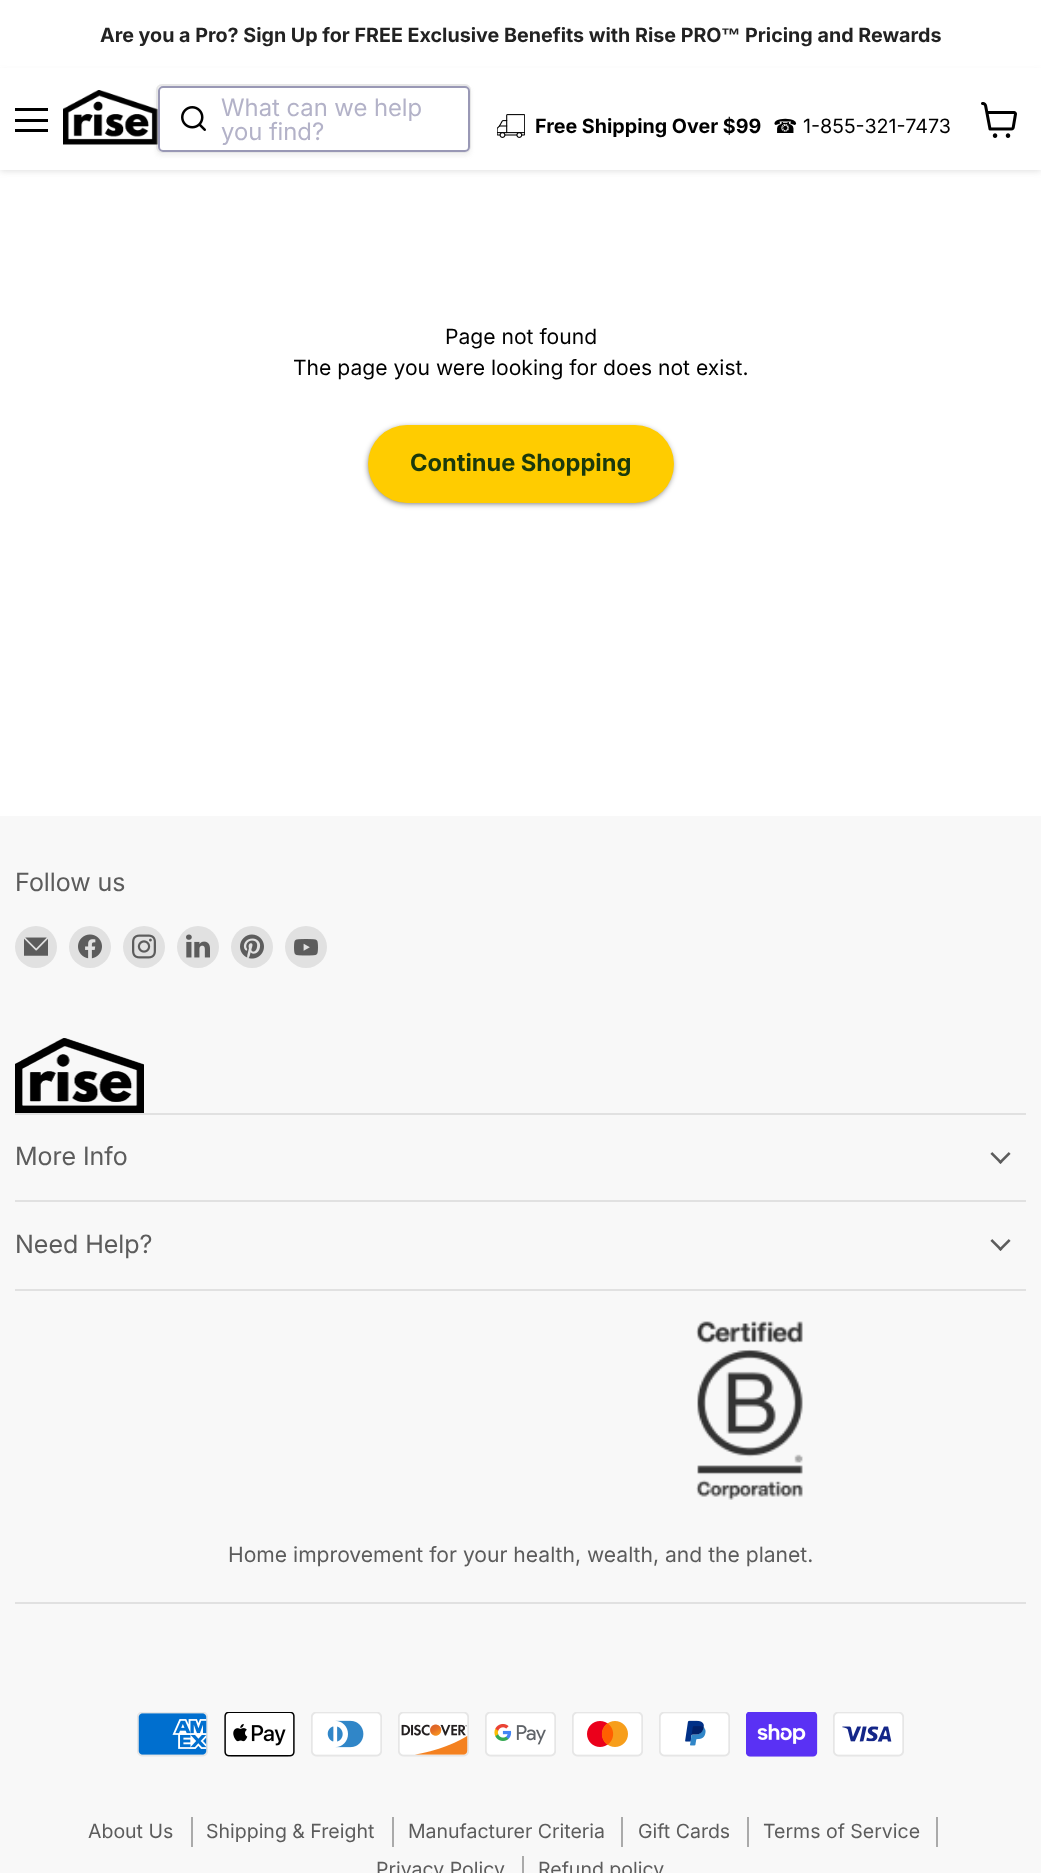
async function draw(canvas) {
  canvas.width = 1041;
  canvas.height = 1873;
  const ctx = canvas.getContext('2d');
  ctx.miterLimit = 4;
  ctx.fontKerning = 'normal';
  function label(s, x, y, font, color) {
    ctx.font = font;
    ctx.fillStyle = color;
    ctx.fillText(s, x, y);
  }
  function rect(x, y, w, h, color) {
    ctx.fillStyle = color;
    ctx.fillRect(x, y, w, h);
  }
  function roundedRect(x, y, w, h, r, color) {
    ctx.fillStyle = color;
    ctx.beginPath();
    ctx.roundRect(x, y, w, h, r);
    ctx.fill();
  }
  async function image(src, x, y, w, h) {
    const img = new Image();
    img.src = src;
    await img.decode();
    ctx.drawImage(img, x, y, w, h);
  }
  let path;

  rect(0, 0, 1041, 1873, '#fff');
  label('Are you a Pro? Sign Up for FREE Exclusive Benefits with Rise PRO', 100, 42, 'bold 19.7px "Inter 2"', '#222');
  label('™', 721, 42, 'bold 19.7px Liberation Sans', '#222');
  label('Pricing and Rewards', 745, 42, 'bold 19.7px "Inter 2"', '#222');
  ctx.fillStyle = '#80808040';
  ctx.filter = 'blur(3px)';
  ctx.beginPath();
  ctx.rect(0, 72, 1041, 99);
  ctx.fill();
  ctx.filter = 'none';
  rect(0, 68, 1041, 102, '#fff');
  rect(15, 108, 33, 3, '#000');
  rect(15, 119, 33, 3, '#000');
  rect(15, 129, 33, 3, '#000');
  await image('assets/img1.png', 63, 90, 95, 55);
  ctx.save();
  path = new Path2D('M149 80H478V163H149ZM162 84H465C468.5 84 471 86.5 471 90V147C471 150.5 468.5 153 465 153H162C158.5 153 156 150.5 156 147V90C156 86.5 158.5 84 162 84Z');
  ctx.clip(path, 'evenodd');
  ctx.fillStyle = '#8080801c';
  ctx.filter = 'blur(2px)';
  ctx.beginPath();
  ctx.roundRect(156, 87, 315, 69, 6);
  ctx.fill();
  ctx.filter = 'none';
  ctx.restore();
  ctx.beginPath();
  ctx.roundRect(157, 85, 313, 67, 5);
  ctx.strokeStyle = '#80808033';
  ctx.lineWidth = 2;
  ctx.stroke();
  roundedRect(158, 86, 312, 66, 5, '#fff');
  ctx.beginPath();
  ctx.roundRect(159, 87, 310, 64, 4);
  ctx.strokeStyle = '#807ea3cc';
  ctx.stroke();
  await image('assets/img2.png', 181, 106, 25, 25);
  label('What can we help', 221, 116, '24px "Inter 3"', '#b3b2c8');
  label('you find?', 221, 140, '24px "Inter 3"', '#b3b2c8');
  await image('assets/img3.png', 497, 114, 28, 24);
  label('Free Shipping Over $99', 535, 133, 'bold 19.7px "Inter 2"', '#000');
  label('☎', 773, 133, '19.7px DejaVu Sans', '#000');
  label('1-855-321-7473', 803, 133, '19.7px Inter', '#000');
  await image('assets/img4.png', 981, 102, 36, 36);
  label('Page not found', 445, 344, '21.1px Inter', '#000');
  label('The page you were looking for does not exist.', 293, 375, '21.1px Inter', '#000');
  ctx.fillStyle = '#000000a3';
  ctx.filter = 'blur(3px)';
  ctx.beginPath();
  ctx.roundRect(369, 428, 303, 75, 37.5);
  ctx.fill();
  ctx.filter = 'none';
  roundedRect(368, 425, 306, 78, 39, '#fc0');
  label('Continue Shopping', 410, 471, 'bold 23.75px Inter', '#1a390c');
  rect(0, 816, 1041, 1057, '#f8f8f8');
  rect(15, 1113, 1011, 2, '#e1e1e1');
  label('Follow us', 15, 891, '25.25px "Inter 2"', '#5c5c5c');
  ctx.fillStyle = '#e1e1e1';
  ctx.beginPath();
  ctx.arc(36, 947, 21, 0, 2 * Math.PI);
  ctx.fill();
  await image('assets/img5.png', 24, 937, 24, 19);
  ctx.beginPath();
  ctx.arc(90, 947, 21, 0, 2 * Math.PI);
  ctx.fill();
  await image('assets/img6.png', 78, 934, 24, 25);
  ctx.beginPath();
  ctx.arc(144, 947, 21, 0, 2 * Math.PI);
  ctx.fill();
  await image('assets/img7.png', 132, 934, 24, 25);
  ctx.beginPath();
  ctx.arc(198, 947, 21, 0, 2 * Math.PI);
  ctx.fill();
  await image('assets/img8.png', 186, 934, 24, 24);
  ctx.beginPath();
  ctx.arc(252, 947, 21, 0, 2 * Math.PI);
  ctx.fill();
  await image('assets/img9.png', 240, 934, 24, 25);
  ctx.beginPath();
  ctx.arc(306, 947, 21, 0, 2 * Math.PI);
  ctx.fill();
  await image('assets/img10.png', 294, 939, 24, 17);
  await image('assets/img11.png', 15, 1038, 129, 75);
  rect(15, 1200, 1011, 2, '#e1e1e1');
  label('More Info', 15, 1165, '25.25px "Inter 2"', '#5c5c5c');
  await image('assets/img12.png', 990, 1152, 21, 12);
  rect(15, 1289, 1011, 2, '#e1e1e1');
  label('Need Help?', 15, 1253, '25.25px "Inter 2"', '#5c5c5c');
  await image('assets/img12.png', 990, 1239, 21, 12);
  rect(15, 1602, 1011, 2, '#e1e1e1');
  await image('assets/img13.png', 696, 1321, 107, 179);
  label('Home improvement for your health, wealth, and the planet.', 228, 1562, '21.1px Inter', '#5c5c5c');
  await image('assets/img14.png', 137, 1712, 71, 45);
  await image('assets/img15.png', 224, 1712, 71, 45);
  await image('assets/img16.png', 311, 1712, 71, 45);
  await image('assets/img17.png', 398, 1712, 71, 45);
  await image('assets/img18.png', 485, 1712, 71, 45);
  await image('assets/img19.png', 572, 1712, 71, 45);
  await image('assets/img20.png', 659, 1712, 71, 45);
  await image('assets/img21.png', 746, 1712, 72, 45);
  await image('assets/img22.png', 833, 1712, 71, 45);
  rect(191, 1817, 2, 30, '#aaa');
  label('About Us', 88, 1838, '19.5px Inter', '#5c5c5c');
  rect(392, 1817, 2, 30, '#aaa');
  label('Shipping & Freight', 206, 1838, '19.5px Inter', '#5c5c5c');
  rect(621, 1817, 2, 30, '#aaa');
  label('Manufacturer Criteria', 408, 1838, '19.5px Inter', '#5c5c5c');
  rect(747, 1817, 2, 30, '#aaa');
  label('Gift Cards', 638, 1838, '19.5px Inter', '#5c5c5c');
  rect(936, 1817, 2, 30, '#aaa');
  label('Terms of Service', 763, 1838, '19.5px Inter', '#5c5c5c');
  rect(522, 1856, 2, 17, '#aaa');
  label('Privacy Policy', 376, 1876, '19.5px Inter', '#5c5c5c');
  label('Refund policy', 538, 1876, '19.5px Inter', '#5c5c5c');
}

draw(document.querySelector('canvas'));
